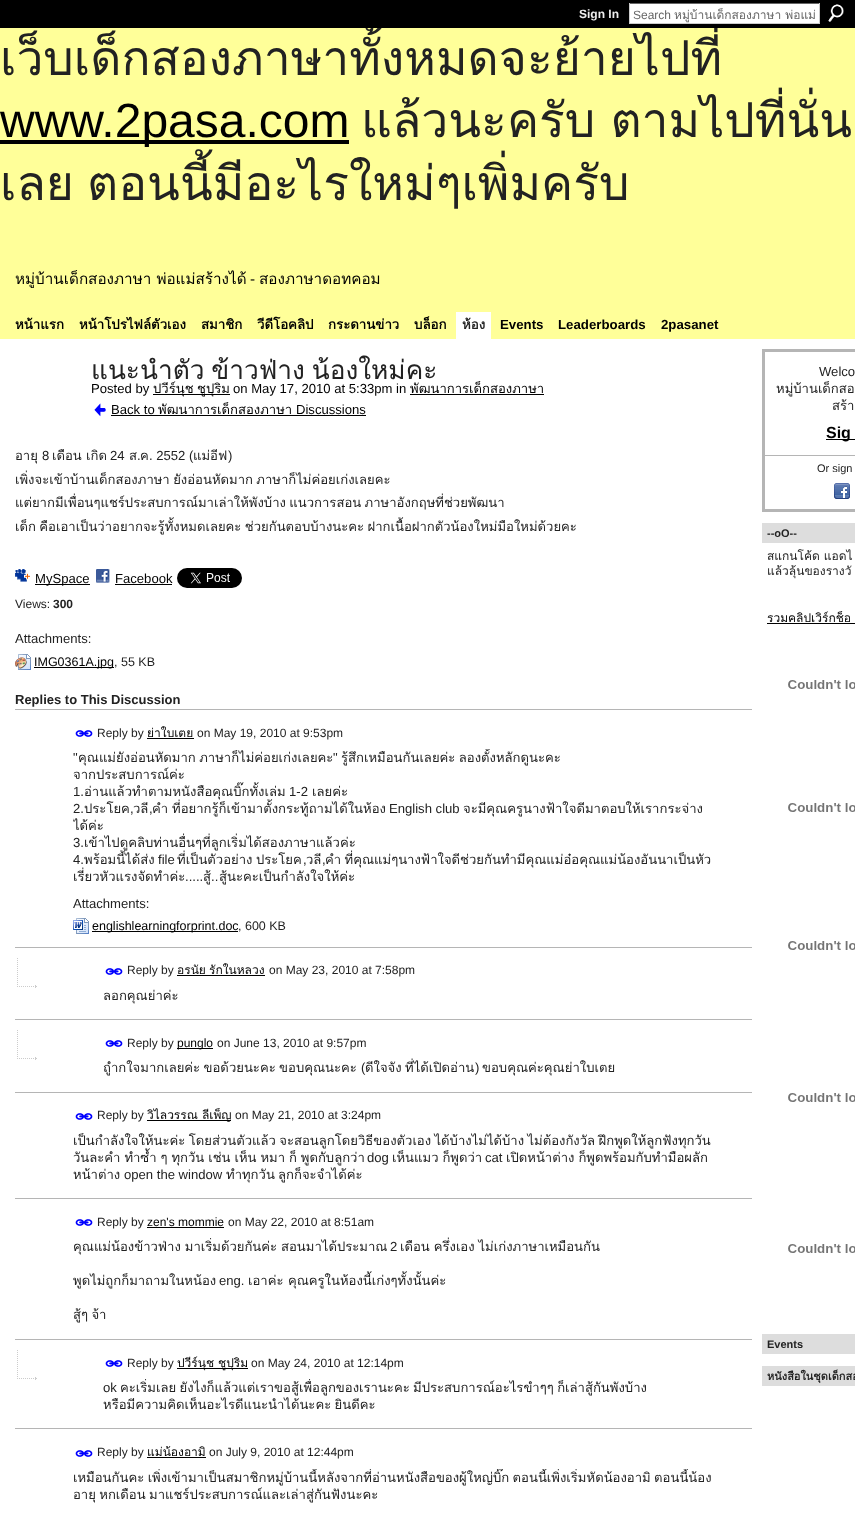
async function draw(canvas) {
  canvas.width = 855;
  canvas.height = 1523;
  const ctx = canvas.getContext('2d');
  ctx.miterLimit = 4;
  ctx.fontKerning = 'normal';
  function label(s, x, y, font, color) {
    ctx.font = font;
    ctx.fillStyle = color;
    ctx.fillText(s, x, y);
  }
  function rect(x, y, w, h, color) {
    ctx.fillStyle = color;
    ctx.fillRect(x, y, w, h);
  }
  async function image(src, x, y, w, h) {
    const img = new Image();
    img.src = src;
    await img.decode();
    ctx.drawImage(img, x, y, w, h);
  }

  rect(0, 0, 855, 1523, '#ff9');
  rect(0, 0, 855, 28, '#000');
  label('Sign In', 579, 18, 'bold 12px Liberation Sans', '#eee');
  rect(630, 4, 189, 19, '#fff');
  rect(629, 3, 191, 1, '#666');
  rect(819, 3, 1, 21, '#ccc');
  rect(629, 23, 191, 1, '#ccc');
  rect(629, 3, 1, 21, '#ccc');
  label('Search', 633, 19, '12px Liberation Sans', '#666');
  label('หมู่บ้านเด็กสองภาษา พ่อแม่', 674, 19, '12px Loma', '#666');
  await image('assets/img1.png', 828, 4, 16, 18);
  ctx.save();
  ctx.beginPath();
  ctx.rect(0, 28, 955, 192);
  ctx.clip();
  label('เว็บเด็กสองภาษาทั้งหมดจะย้ายไปที่', 0, 75, '48px Loma', '#222');
  ctx.restore();
  rect(0, 140, 349, 4, '#000');
  label('www.2pasa.com', 0, 137, '48px Liberation Sans', '#000');
  ctx.wordSpacing = '-1px';
  label('แล้วนะครับ ตามไปที่นั่น', 361, 137, '48px Loma', '#222');
  ctx.wordSpacing = '-3px';
  label('เลย ตอนนี้มีอะไรใหม่ๆเพิ่มครับ', 0, 200, '48px Loma', '#222');
  ctx.wordSpacing = '0px';
  label('หมู่บ้านเด็กสองภาษา พ่อแม่สร้างได้', 15, 284, '15.25px Loma', '#000');
  label('-', 250, 284, '15.25px Liberation Sans', '#000');
  label('สองภาษาดอทคอม', 259, 284, '15.25px Loma', '#000');
  label('หน้าแรก', 15, 329, 'bold 13.25px Loma', '#000');
  label('หน้าโปรไฟล์ตัวเอง', 79, 329, 'bold 13.25px Loma', '#000');
  label('สมาชิก', 201, 329, 'bold 13.25px Loma', '#000');
  label('วีดีโอคลิป', 257, 329, 'bold 13.25px Loma', '#000');
  label('กระดานข่าว', 328, 329, 'bold 13.25px Loma', '#000');
  label('บล็อก', 414, 329, 'bold 13.25px Loma', '#000');
  rect(456, 312, 35, 27, '#fff');
  label('ห้อง', 462, 329, 'bold 13.25px Loma', '#222');
  label('Events', 500, 329, 'bold 13.25px Liberation Sans', '#000');
  label('Leaderboards', 558, 329, 'bold 13.25px Liberation Sans', '#000');
  label('2pasanet', 661, 329, 'bold 13.25px Liberation Sans', '#000');
  rect(0, 339, 855, 1184, '#fff');
  ctx.wordSpacing = '-2px';
  label('แนะนำตัว ข้าวฟ่าง น้องใหม่คะ', 91, 379, '26.25px Loma', '#222');
  ctx.wordSpacing = '0px';
  label('Posted by', 91, 393, '13.1px Liberation Sans', '#000');
  rect(153, 394, 77, 1, '#000');
  label('ปวีร์นุช', 153, 393, '13.1px Loma', '#000');
  label('ชูปุริม', 197, 393, '13.1px Loma', '#000');
  label('on May 17, 2010 at 5:33pm in', 233, 393, '13.1px Liberation Sans', '#000');
  label('พัฒนาการเด็กสองภาษา', 410, 393, '13.1px Loma', '#000');
  rect(410, 394, 134, 1, '#000');
  await image('assets/img2.png', 94, 403, 12, 14);
  label('Back to', 111, 414, '13.1px Liberation Sans', '#000');
  rect(111, 415, 255, 1, '#000');
  label('พัฒนาการเด็กสองภาษา', 158, 414, '13.1px Loma', '#000');
  label('Discussions', 296, 414, '13.1px Liberation Sans', '#000');
  label('อายุ', 15, 460, '13.1px Loma', '#222');
  label('8', 42, 460, '13.1px Liberation Sans', '#222');
  label('เดือน', 52, 460, '13.1px Loma', '#222');
  label('เกิด', 86, 460, '13.1px Loma', '#222');
  label('24', 110, 460, '13.1px Liberation Sans', '#222');
  label('ส', 129, 460, '13.1px Loma', '#222');
  label('.', 137, 460, '13.1px Liberation Sans', '#222');
  label('ค', 140, 460, '13.1px Loma', '#222');
  label('. 2552 (', 149, 460, '13.1px Liberation Sans', '#222');
  label('แม่อีฟ', 193, 460, '13.1px Loma', '#222');
  label(')', 228, 460, '13.1px Liberation Sans', '#222');
  ctx.save();
  ctx.beginPath();
  ctx.rect(15, 447, 737, 112);
  ctx.clip();
  ctx.wordSpacing = '-1px';
  label('เพิ่งจะเข้าบ้านเด็กสองภาษา ยังอ่อนหัดมาก ภาษาก็ไม่ค่อยเก่งเลยคะ', 15, 484, '13.1px Loma', '#222');
  ctx.restore();
  ctx.wordSpacing = '-1px';
  label('แต่ยากมีเพื่อนๆแชร์ประสบการณ์มาเล่าให้พังบ้าง แนวการสอน ภาษาอังกฤษที่ช่วยพัฒนา', 15, 507, '13.1px Loma', '#222');
  ctx.save();
  ctx.beginPath();
  ctx.rect(15, 447, 737, 112);
  ctx.clip();
  label('เด็ก คือเอาเป็นว่าอยากจะรู้ทั้งหมดเลยคะ ช่วยกันตอบบ้างนะคะ ฝากเนื้อฝากตัวน้องใหม่มือใหม่ด้วยคะ', 15, 531, '13.1px Loma', '#222');
  ctx.restore();
  await image('assets/img3.png', 15, 569, 15, 13);
  rect(35, 584, 55, 1, '#000');
  ctx.wordSpacing = '0px';
  label('MySpace', 35, 583, '13.1px Liberation Sans', '#000');
  await image('assets/img4.png', 96, 569, 14, 14);
  label('Facebook', 115, 583, '13.1px Liberation Sans', '#000');
  rect(115, 584, 57, 1, '#000');
  await image('assets/img5.png', 177, 568, 65, 20);
  label('Views:', 15, 608, '12px Liberation Sans', '#222');
  label('300', 53, 608, 'bold 12px Liberation Sans', '#222');
  label('Attachments:', 15, 643, '13.1px Liberation Sans', '#222');
  await image('assets/img6.png', 15, 654, 16, 16);
  rect(34, 667, 80, 1, '#000');
  label('IMG0361A.jpg', 34, 666, '12.5px Liberation Sans', '#000');
  label(', 55 KB', 114, 666, '12.5px Liberation Sans', '#222');
  label('Replies to This Discussion', 15, 704, 'bold 13px Liberation Sans', '#222');
  rect(15, 709, 737, 1, '#b5b5b5');
  await image('assets/img7.png', 75, 730, 18, 7);
  label('Reply by', 97, 737, '12px Liberation Sans', '#222');
  label('ย่าใบเตย', 147, 737, '12px Loma', '#000');
  rect(147, 738, 47, 1, '#000');
  label('on May 19, 2010 at 9:53pm', 197, 737, '12px Liberation Sans', '#222');
  label('"', 73, 762, '13.1px Liberation Sans', '#222');
  ctx.wordSpacing = '-1px';
  label('คุณแม่ยังอ่อนหัดมาก ภาษาก็ไม่ค่อยเก่งเลยคะ', 78, 762, '13.1px Loma', '#222');
  ctx.wordSpacing = '0px';
  label('"', 333, 762, '13.1px Liberation Sans', '#222');
  ctx.save();
  ctx.beginPath();
  ctx.rect(73, 749, 644, 136);
  ctx.clip();
  ctx.wordSpacing = '-1px';
  label('รู้สึกเหมือนกันเลยค่ะ ลองตั้งหลักดูนะคะ', 341, 762, '13.1px Loma', '#222');
  ctx.restore();
  label('จากประสบการณ์ค่ะ', 73, 779, '13.1px Loma', '#222');
  label('1.', 73, 796, '13.1px Liberation Sans', '#222');
  label('อ่านแล้วทำตามหนังสือคุณบิ๊กทั้งเล่ม', 84, 796, '13.1px Loma', '#222');
  label('1-2', 289, 796, '13.1px Liberation Sans', '#222');
  label('เลยค่ะ', 312, 796, '13.1px Loma', '#222');
  label('2.', 73, 813, '13.1px Liberation Sans', '#222');
  label('ประโยค', 84, 813, '13.1px Loma', '#222');
  label(',', 130, 813, '13.1px Liberation Sans', '#222');
  label('วลี', 133, 813, '13.1px Loma', '#222');
  label(',', 149, 813, '13.1px Liberation Sans', '#222');
  label('คำ', 152, 813, '13.1px Loma', '#222');
  label('ที่อยากรู้ก็เข้ามาตั้งกระทู้ถามได้ในห้อง', 172, 813, '13.1px Loma', '#222');
  label('English club', 389, 813, '13.1px Liberation Sans', '#222');
  label('จะมีคุณครูนางฟ้าใจดีมาตอบให้เรากระจ่าง', 463, 813, '13.1px Loma', '#222');
  ctx.save();
  ctx.beginPath();
  ctx.rect(73, 749, 644, 136);
  ctx.clip();
  label('ได้ค่ะ', 73, 830, '13.1px Loma', '#222');
  ctx.restore();
  label('3.', 73, 847, '13.1px Liberation Sans', '#222');
  label('เข้าไปดูคลิบท่านอื่นๆที่ลูกเริ่มได้สองภาษาแล้วค่ะ', 84, 847, '13.1px Loma', '#222');
  label('4.', 73, 864, '13.1px Liberation Sans', '#222');
  label('พร้อมนี้ได้ส่ง', 84, 864, '13.1px Loma', '#222');
  label('file', 158, 864, '13.1px Liberation Sans', '#222');
  ctx.wordSpacing = '-1px';
  label('ที่เป็นตัวอย่าง ประโยค', 177, 864, '13.1px Loma', '#222');
  ctx.wordSpacing = '0px';
  label(',', 303, 864, '13.1px Liberation Sans', '#222');
  label('วลี', 306, 864, '13.1px Loma', '#222');
  label(',', 322, 864, '13.1px Liberation Sans', '#222');
  ctx.wordSpacing = '-1px';
  label('คำ ที่คุณแม่ๆนางฟ้าใจดีช่วยกันทำมีคุณแม่อ๋อคุณแม่น้องอันนาเป็นหัว', 325, 864, '13.1px Loma', '#222');
  ctx.save();
  ctx.beginPath();
  ctx.rect(73, 749, 644, 136);
  ctx.clip();
  ctx.wordSpacing = '0px';
  label('เรี่ยวหัวแรงจัดทำค่ะ', 73, 881, '13.1px Loma', '#222');
  ctx.restore();
  ctx.wordSpacing = '0px';
  label('.....', 185, 881, '13.1px Liberation Sans', '#222');
  label('สู้', 203, 881, '13.1px Loma', '#222');
  label('..', 211, 881, '13.1px Liberation Sans', '#222');
  label('สู้นะคะเป็นกำลังใจให้ค่ะ', 219, 881, '13.1px Loma', '#222');
  label('Attachments:', 73, 908, '13.1px Liberation Sans', '#222');
  await image('assets/img8.png', 73, 918, 16, 16);
  rect(92, 931, 146, 1, '#000');
  label('englishlearningforprint.doc', 92, 930, '12.5px Liberation Sans', '#000');
  label(', 600 KB', 238, 930, '12.5px Liberation Sans', '#222');
  await image('assets/img9.png', 17, 958, 20, 30);
  rect(15, 947, 737, 1, '#b5b5b5');
  await image('assets/img7.png', 105, 968, 18, 7);
  label('Reply by', 127, 974, '12px Liberation Sans', '#222');
  ctx.wordSpacing = '-1px';
  label('อรนัย รักในหลวง', 177, 974, '12px Loma', '#000');
  rect(177, 975, 88, 1, '#000');
  ctx.wordSpacing = '0px';
  label('on May 23, 2010 at 7:58pm', 269, 974, '12px Liberation Sans', '#222');
  label('ลอกคุณย่าค่ะ', 103, 1000, '13.1px Loma', '#222');
  await image('assets/img9.png', 17, 1030, 20, 30);
  rect(15, 1019, 737, 1, '#b5b5b5');
  await image('assets/img7.png', 105, 1040, 18, 7);
  label('Reply by', 127, 1047, '12px Liberation Sans', '#222');
  rect(177, 1048, 36, 1, '#000');
  label('punglo', 177, 1047, '12px Liberation Sans', '#000');
  label('on June 13, 2010 at 9:57pm', 217, 1047, '12px Liberation Sans', '#222');
  ctx.save();
  ctx.beginPath();
  ctx.rect(103, 1059, 614, 17);
  ctx.clip();
  ctx.wordSpacing = '-1px';
  label('ถูำกใจมากเลยค่ะ ขอด้วยนะคะ ขอบคุณนะคะ', 103, 1072, '13.1px Loma', '#222');
  ctx.restore();
  label('(', 361, 1072, '13.1px Liberation Sans', '#222');
  ctx.wordSpacing = '-1px';
  label('ดีใจจัง ที่ได้เปิดอ่าน', 365, 1072, '13.1px Loma', '#222');
  ctx.wordSpacing = '0px';
  label('ขอบคุณค่ะคุณย่าใบเตย', 482, 1072, '13.1px Loma', '#222');
  label(')', 475, 1072, '13.1px Liberation Sans', '#222');
  rect(15, 1092, 737, 1, '#b5b5b5');
  await image('assets/img7.png', 75, 1113, 18, 7);
  label('Reply by', 97, 1119, '12px Liberation Sans', '#222');
  label('วิไลวรรณ', 147, 1119, '12px Loma', '#000');
  rect(147, 1120, 84, 1, '#000');
  label('ลีเพ็ญ', 202, 1119, '12px Loma', '#000');
  label('on May 21, 2010 at 3:24pm', 235, 1119, '12px Liberation Sans', '#222');
  ctx.save();
  ctx.beginPath();
  ctx.rect(73, 1132, 644, 51);
  ctx.clip();
  ctx.wordSpacing = '-1px';
  label('เป็นกำลังใจให้นะค่ะ โดยส่วนตัวแล้ว จะสอนลูกโดยวิธีของตัวเอง ได้บ้างไม่ได้บ้าง ไม่ต้องกังวัล ฝึกพูดให้ลูกฟังทุกวัน', 73, 1145, '13.1px Loma', '#222');
  ctx.wordSpacing = '-0.5px';
  label('วันละคำ ทำซ้ำ ๆ ทุกวัน เช่น เห็น หมา ก็ พูดกับลูกว่า', 73, 1162, '13.1px Loma', '#222');
  ctx.restore();
  label('dog', 367, 1162, '13.1px Liberation Sans', '#222');
  ctx.wordSpacing = '-0.5px';
  label('เห็นแมว ก็พูดว่า', 392, 1162, '13.1px Loma', '#222');
  ctx.wordSpacing = '0px';
  label('cat', 485, 1162, '13.1px Liberation Sans', '#222');
  ctx.wordSpacing = '-0.5px';
  label('เปิดหน้าต่าง ก็พูดพร้อมกับทำมือผลัก', 506, 1162, '13.1px Loma', '#222');
  ctx.wordSpacing = '0px';
  label('หน้าต่าง', 73, 1179, '13.1px Loma', '#222');
  label('open the window', 124, 1179, '13.1px Liberation Sans', '#222');
  label('ทำทุกวัน', 226, 1179, '13.1px Loma', '#222');
  label('ลูกก็จะจำได้ค่ะ', 278, 1179, '13.1px Loma', '#222');
  rect(15, 1198, 737, 1, '#b5b5b5');
  await image('assets/img7.png', 75, 1219, 18, 7);
  label('Reply by', 97, 1226, '12px Liberation Sans', '#222');
  label('zen\'s mommie', 147, 1226, '12px Liberation Sans', '#000');
  rect(147, 1227, 77, 1, '#000');
  label('on May 22, 2010 at 8:51am', 228, 1226, '12px Liberation Sans', '#222');
  ctx.save();
  ctx.beginPath();
  ctx.rect(73, 1238, 644, 85);
  ctx.clip();
  ctx.wordSpacing = '-0.5px';
  label('คุณแม่น้องข้าวฟ่าง มาเริ่มด้วยกันค่ะ สอนมาได้ประมาณ', 73, 1251, '13.1px Loma', '#222');
  ctx.restore();
  label('2', 390, 1251, '13.1px Liberation Sans', '#222');
  ctx.wordSpacing = '-0.5px';
  label('เดือน ครึ่งเอง ไม่เก่งภาษาเหมือนกัน', 400, 1251, '13.1px Loma', '#222');
  ctx.save();
  ctx.beginPath();
  ctx.rect(73, 1238, 644, 85);
  ctx.clip();
  ctx.wordSpacing = '0px';
  label('พูดไม่ถูกก็มาถามในหน้อง', 73, 1285, '13.1px Loma', '#222');
  ctx.restore();
  ctx.wordSpacing = '0px';
  label('eng.', 219, 1285, '13.1px Liberation Sans', '#222');
  label('เอาค่ะ คุณครูในห้องนี้เก่งๆทั้งนั้นค่ะ', 248, 1285, '13.1px Loma', '#222');
  ctx.save();
  ctx.beginPath();
  ctx.rect(73, 1238, 644, 85);
  ctx.clip();
  ctx.wordSpacing = '-1px';
  label('สู้ๆ จ้า', 73, 1319, '13.1px Loma', '#222');
  ctx.restore();
  await image('assets/img9.png', 17, 1350, 20, 30);
  rect(15, 1339, 737, 1, '#b5b5b5');
  await image('assets/img7.png', 105, 1360, 18, 7);
  label('Reply by', 127, 1367, '12px Liberation Sans', '#222');
  rect(177, 1368, 71, 1, '#000');
  label('ปวีร์นุช', 177, 1367, '12px Loma', '#000');
  label('ชูปุริม', 218, 1367, '12px Loma', '#000');
  label('on May 24, 2010 at 12:14pm', 251, 1367, '12px Liberation Sans', '#222');
  label('ok', 103, 1392, '13.1px Liberation Sans', '#222');
  ctx.save();
  ctx.beginPath();
  ctx.rect(103, 1379, 614, 34);
  ctx.clip();
  ctx.wordSpacing = '-1px';
  label('คะเริ่มเลย ยังไงก็แล้วแต่เราขอสู้เพื่อลูกของเรานะคะ มีประสบการณ์อะไรขำๆๆ ก็เล่าสู้กันพังบ้าง', 120, 1392, '13.1px Loma', '#222');
  ctx.restore();
  ctx.wordSpacing = '-1px';
  label('หรือมีความคิดเห็นอะไรดีแนะนำได้นะคะ ยินดีคะ', 103, 1409, '13.1px Loma', '#222');
  rect(15, 1428, 737, 1, '#b5b5b5');
  await image('assets/img7.png', 75, 1450, 18, 7);
  ctx.wordSpacing = '0px';
  label('Reply by', 97, 1456, '12px Liberation Sans', '#222');
  label('แม่น้องอามิ', 147, 1456, '12px Loma', '#000');
  rect(147, 1457, 59, 1, '#000');
  label('on July 9, 2010 at 12:44pm', 209, 1456, '12px Liberation Sans', '#222');
  ctx.save();
  ctx.beginPath();
  ctx.rect(73, 1469, 644, 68);
  ctx.clip();
  ctx.wordSpacing = '-1px';
  label('เหมือนกันคะ เพิ่งเข้ามาเป็นสมาชิกหมู่บ้านนี้หลังจากที่อ่านหนังสือของผู้ใหญ่บิ๊ก ตอนนี้เพิ่งเริ่มหัดน้องอามิ ตอนนี้น้อง', 73, 1482, '13.1px Loma', '#222');
  ctx.restore();
  ctx.wordSpacing = '-1px';
  label('อายุ หกเดือน มาแชร์ประสบการณ์และเล่าสู่กันฟังนะคะ', 73, 1499, '13.1px Loma', '#222');
  ctx.strokeStyle = '#b5b5b5';
  ctx.lineWidth = 3;
  ctx.strokeRect(763.5, 350.5, 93, 160);
  ctx.wordSpacing = '0px';
  label('Welco', 819, 376, '13.1px Liberation Sans', '#222');
  ctx.wordSpacing = '-1px';
  label('หมู่บ้านเด็กสอ', 776, 393, '13.1px Loma', '#222');
  ctx.wordSpacing = '0px';
  label('สร้า', 832, 410, '13.1px Loma', '#222');
  rect(826, 439, 29, 1, '#000');
  label('Sig', 826, 438, 'bold 16px Liberation Sans', '#000');
  rect(765, 455, 90, 1, '#b5b5b5');
  label('Or sign', 817, 472, '11px Liberation Sans', '#222');
  await image('assets/img10.png', 834, 483, 16, 16);
  rect(762, 523, 93, 20, '#ddd');
  label('--oO--', 767, 537, 'bold 11px Liberation Sans', '#222');
  label('สแกนโค้ด แอดไ', 767, 560, '12px Loma', '#222');
  label('แล้วลุ้นของรางวั', 767, 575, '12px Loma', '#222');
  label('รวมคลิปเวิร์กช็อ', 767, 622, '12px Loma', '#000');
  rect(767, 623, 88, 1, '#000');
  await image('assets/img11.png', 788, 680, 67, 9);
  await image('assets/img11.png', 788, 803, 67, 9);
  await image('assets/img11.png', 788, 941, 67, 9);
  await image('assets/img11.png', 788, 1093, 67, 9);
  await image('assets/img11.png', 788, 1244, 67, 9);
  rect(762, 1334, 93, 20, '#ddd');
  label('Events', 767, 1348, 'bold 11px Liberation Sans', '#222');
  rect(762, 1366, 93, 20, '#ddd');
  label('หนังสือในชุดเด็กสอ', 767, 1380, 'bold 11px Loma', '#222');
}

draw(document.querySelector('canvas'));
